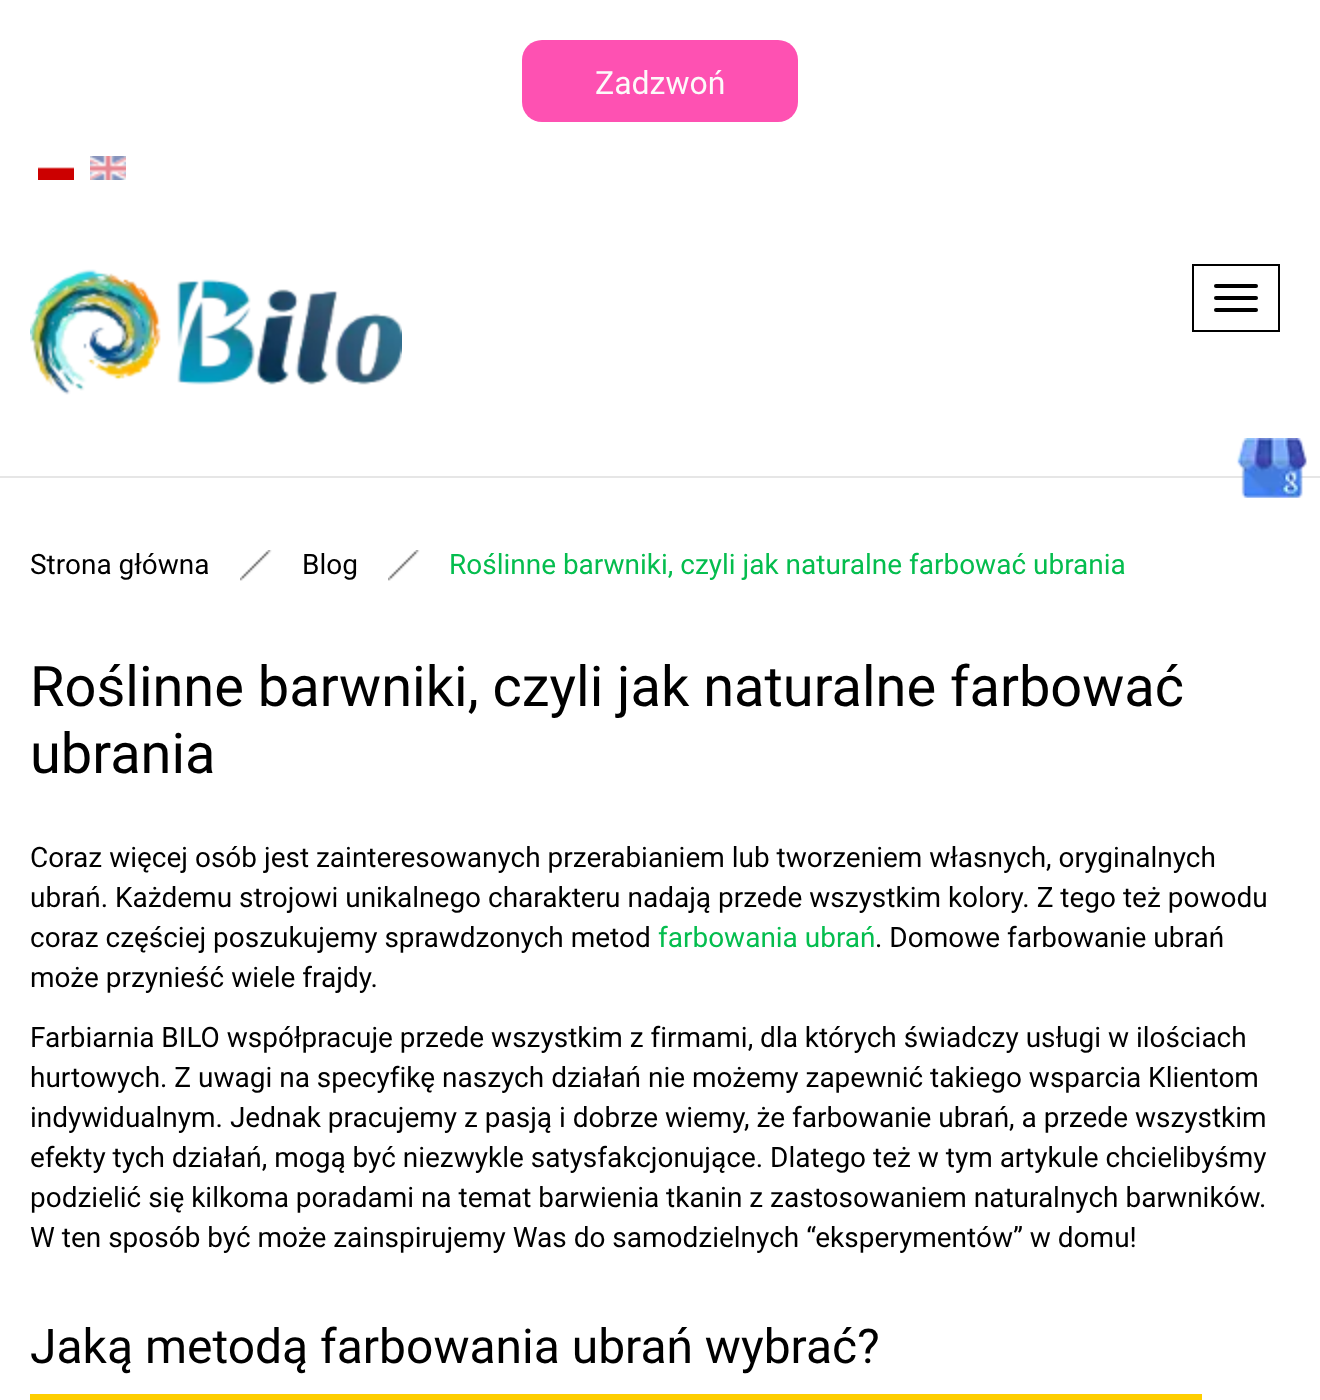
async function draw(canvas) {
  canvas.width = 1320;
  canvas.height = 1400;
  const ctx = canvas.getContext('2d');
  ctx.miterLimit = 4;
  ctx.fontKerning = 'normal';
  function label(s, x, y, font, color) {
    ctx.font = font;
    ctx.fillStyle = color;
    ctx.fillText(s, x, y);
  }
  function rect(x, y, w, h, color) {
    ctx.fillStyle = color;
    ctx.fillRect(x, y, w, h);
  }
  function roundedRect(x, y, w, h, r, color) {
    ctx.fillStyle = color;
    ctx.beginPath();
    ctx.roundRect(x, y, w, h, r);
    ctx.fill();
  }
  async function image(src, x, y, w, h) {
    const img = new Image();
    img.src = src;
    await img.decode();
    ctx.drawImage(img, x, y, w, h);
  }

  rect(0, 0, 1320, 1400, '#fff');
  rect(0, 476, 1320, 2, '#e6e6e6');
  roundedRect(522, 40, 276, 82, 20, '#fe51b2');
  label('Zadzwoń', 595, 94, '32px Roboto', '#fcfafa');
  await image('assets/img1.png', 38, 167, 36, 13);
  await image('assets/img2.png', 90, 156, 36, 24);
  await image('assets/img3.png', 30, 269, 372, 126);
  ctx.strokeStyle = '#000';
  ctx.lineWidth = 2;
  ctx.strokeRect(1193, 265, 86, 66);
  roundedRect(1214, 284, 44, 4, 2, '#000');
  roundedRect(1214, 296, 44, 4, 2, '#000');
  roundedRect(1214, 308, 44, 4, 2, '#000');
  await image('assets/img4.png', 1236, 438, 71, 60);
  label('Strona główna', 30, 574, '28px Roboto', '#000');
  await image('assets/img5.png', 240, 550, 32, 31);
  label('Blog', 302, 574, '28px Roboto', '#000');
  await image('assets/img5.png', 388, 550, 32, 31);
  label('Roślinne barwniki, czyli jak naturalne farbować ubrania', 449, 574, '28px Roboto', '#04bd4e');
  label('Roślinne barwniki, czyli jak naturalne farbować', 30, 706, '56px Roboto', '#000');
  label('ubrania', 30, 773, '56px Roboto', '#000');
  label('Coraz więcej osób jest zainteresowanych przerabianiem lub tworzeniem własnych, oryginalnych', 30, 867, '28px Roboto', '#000');
  label('ubrań. Każdemu strojowi unikalnego charakteru nadają przede wszystkim kolory. Z tego też powodu', 30, 907, '28px Roboto', '#000');
  label('coraz częściej poszukujemy sprawdzonych metod', 30, 947, '28px Roboto', '#000');
  label('farbowania ubrań', 658, 947, '28px Roboto', '#04bd4e');
  label('. Domowe farbowanie ubrań', 875, 947, '28px Roboto', '#000');
  label('może przynieść wiele frajdy.', 30, 987, '28px Roboto', '#000');
  label('Farbiarnia BILO współpracuje przede wszystkim z firmami, dla których świadczy usługi w ilościach', 30, 1047, '28px Roboto', '#000');
  label('hurtowych. Z uwagi na specyfikę naszych działań nie możemy zapewnić takiego wsparcia Klientom', 30, 1087, '28px Roboto', '#000');
  label('indywidualnym. Jednak pracujemy z pasją i dobrze wiemy, że farbowanie ubrań, a przede wszystkim', 30, 1127, '28px Roboto', '#000');
  label('efekty tych działań, mogą być niezwykle satysfakcjonujące. Dlatego też w tym artykule chcielibyśmy', 30, 1167, '28px Roboto', '#000');
  label('podzielić się kilkoma poradami na temat barwienia tkanin z zastosowaniem naturalnych barwników.', 30, 1207, '28px Roboto', '#000');
  label('W ten sposób być może zainspirujemy Was do samodzielnych “eksperymentów” w domu!', 30, 1247, '28px Roboto', '#000');
  label('Jaką metodą farbowania ubrań wybrać?', 30, 1363, '48px Roboto', '#000');
  rect(30, 1394, 1172, 6, '#fece00');
}

draw(document.querySelector('canvas'));
